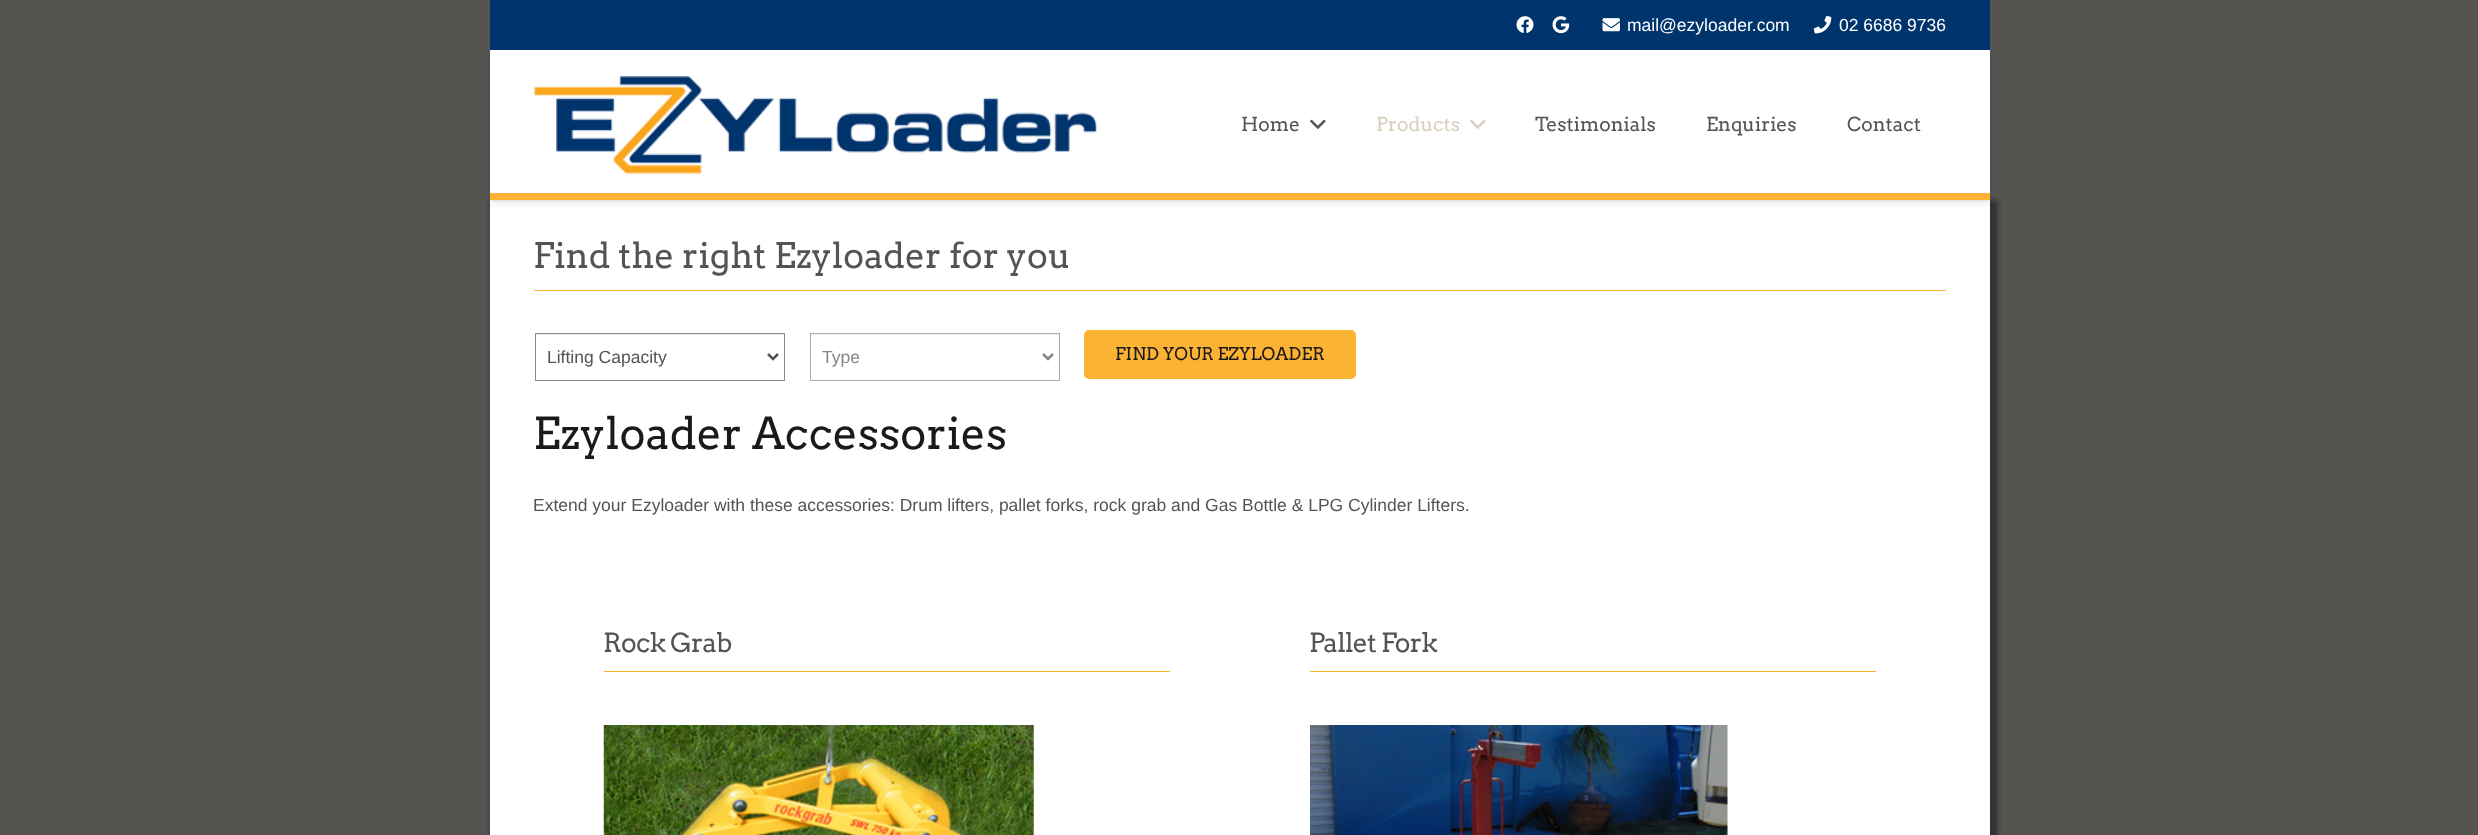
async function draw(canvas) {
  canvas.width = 2478;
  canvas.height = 835;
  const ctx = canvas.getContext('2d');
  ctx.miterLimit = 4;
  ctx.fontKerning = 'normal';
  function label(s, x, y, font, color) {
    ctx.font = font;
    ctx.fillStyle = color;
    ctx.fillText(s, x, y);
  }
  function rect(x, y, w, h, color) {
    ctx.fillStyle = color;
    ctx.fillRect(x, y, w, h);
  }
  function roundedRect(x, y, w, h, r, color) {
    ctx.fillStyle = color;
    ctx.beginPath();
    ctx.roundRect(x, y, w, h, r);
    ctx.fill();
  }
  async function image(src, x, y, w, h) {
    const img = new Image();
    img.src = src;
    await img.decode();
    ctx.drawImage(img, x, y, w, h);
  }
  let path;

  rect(0, 0, 2478, 835, '#565451');
  rect(490, 200, 1500, 635, '#fff');
  rect(490, 0, 1500, 50, '#00346d');
  await image('assets/img1.png', 1516, 16, 18, 17);
  await image('assets/img2.png', 1552, 16, 18, 18);
  await image('assets/img3.png', 1602, 18, 18, 14);
  label('mail@ezyloader.com', 1627, 31, '17.5px Liberation Sans', '#fff');
  await image('assets/img4.png', 1813, 16, 19, 18);
  label('02 6686 9736', 1839, 31, '17.5px Liberation Sans', '#fff');
  ctx.fillStyle = '#0000000d';
  ctx.filter = 'blur(0.5px)';
  ctx.beginPath();
  ctx.rect(491, 54, 1498, 147);
  ctx.fill();
  ctx.filter = 'none';
  ctx.fillStyle = '#0000001a';
  ctx.filter = 'blur(3px)';
  ctx.beginPath();
  ctx.rect(491, 55, 1498, 148);
  ctx.fill();
  ctx.filter = 'none';
  rect(490, 50, 1500, 143, '#fff');
  ctx.save();
  path = new Path2D('M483 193H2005V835H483ZM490 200H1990V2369H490Z');
  ctx.clip(path, 'evenodd');
  ctx.fillStyle = '#333';
  ctx.filter = 'blur(2px)';
  ctx.beginPath();
  ctx.rect(490, 200, 1508, 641);
  ctx.fill();
  ctx.filter = 'none';
  ctx.restore();
  rect(490, 193, 1500, 7, '#fcb232');
  await image('assets/img5.png', 533, 76, 564, 98);
  label('Home', 1241, 131, '19.25px Arvo', '#565451');
  await image('assets/img6.png', 1310, 119, 16, 10);
  label('Products', 1376, 131, '19.25px Arvo', '#d9cfbe');
  await image('assets/img7.png', 1470, 119, 16, 10);
  label('Testimonials', 1535, 131, '19.25px Arvo', '#565451');
  label('Enquiries', 1706, 131, '19.25px Arvo', '#565451');
  label('Contact', 1847, 131, '19.25px Arvo', '#565451');
  rect(534, 290, 1412, 1, '#fcb232');
  label('Find the right Ezyloader for you', 533, 268, '35px Arvo', '#565451');
  rect(536, 334, 248, 1, '#ebebeb');
  ctx.strokeStyle = '#888';
  ctx.strokeRect(535.5, 333.5, 249, 47);
  path = new Path2D('M768 354L773 359L778 354');
  ctx.strokeStyle = '#565451';
  ctx.lineWidth = 2.5;
  ctx.stroke(path);
  label('Lifting Capacity', 547, 363, '17.5px Liberation Sans', '#565451');
  rect(811, 334, 248, 1, '#f1f1f1');
  ctx.strokeStyle = '#acacac';
  ctx.lineWidth = 1;
  ctx.strokeRect(810.5, 333.5, 249, 47);
  path = new Path2D('M1043 354L1048 359L1053 354');
  ctx.strokeStyle = '#898785';
  ctx.lineWidth = 2.5;
  ctx.stroke(path);
  label('Type', 822, 363, '17.5px Liberation Sans', '#898785');
  roundedRect(1084, 330, 272, 49, 5, '#fcb232');
  label('FIND YOUR EZYLOADER', 1115, 360, '17.5px Arvo', '#1a1a1a');
  label('Ezyloader Accessories', 533, 449, '43.75px Arvo', '#1a1a1a');
  label('Extend your Ezyloader with these accessories: Drum lifters, pallet forks, rock grab and Gas Bottle & LPG Cylinder Lifters.', 533, 511, '17.5px Liberation Sans', '#565451');
  rect(604, 671, 566, 1, '#fcb232');
  ctx.letterSpacing = '-0.75px';
  label('Rock Grab', 603, 652, '26.25px Arvo', '#565451');
  await image('assets/img8.png', 603, 725, 431, 110);
  rect(1310, 671, 566, 1, '#fcb232');
  label('Pallet Fork', 1309, 652, '26.25px Arvo', '#565451');
  await image('assets/img9.png', 1310, 725, 418, 110);
}

draw(document.querySelector('canvas'));
